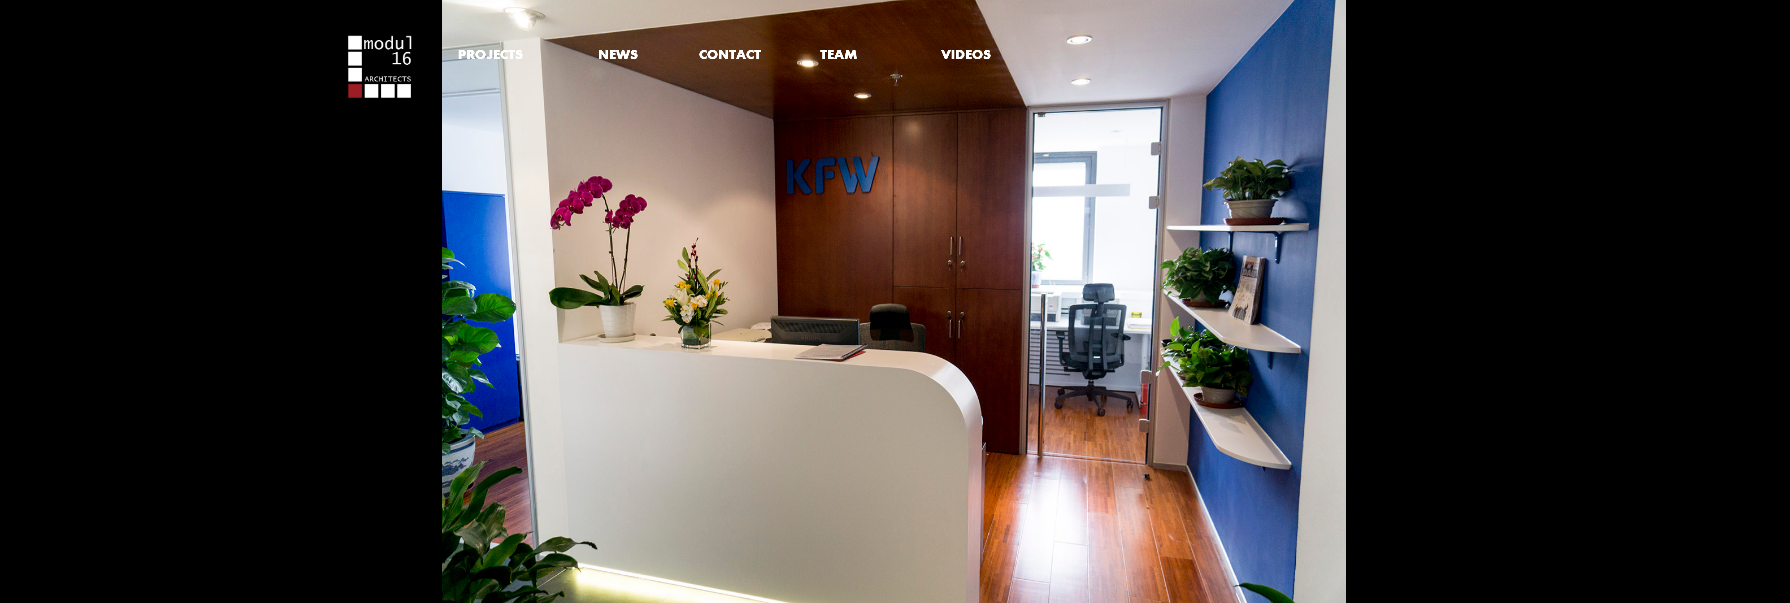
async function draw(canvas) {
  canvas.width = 1790;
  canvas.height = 603;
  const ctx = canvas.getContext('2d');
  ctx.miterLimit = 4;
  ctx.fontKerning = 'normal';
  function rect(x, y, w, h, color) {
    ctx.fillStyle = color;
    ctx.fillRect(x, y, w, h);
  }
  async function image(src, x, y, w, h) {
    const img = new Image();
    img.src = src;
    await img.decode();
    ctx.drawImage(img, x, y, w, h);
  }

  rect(0, 0, 1790, 603, '#000');
  await image('assets/img1.png', 442, 0, 904, 603);
  await image('assets/img2.png', 348, 35, 64, 63);
  await image('assets/img3.png', 458, 50, 65, 9);
  await image('assets/img4.png', 599, 50, 39, 9);
  await image('assets/img5.png', 699, 50, 62, 9);
  await image('assets/img6.png', 820, 50, 37, 9);
  await image('assets/img7.png', 941, 50, 50, 9);
}

draw(document.querySelector('canvas'));
